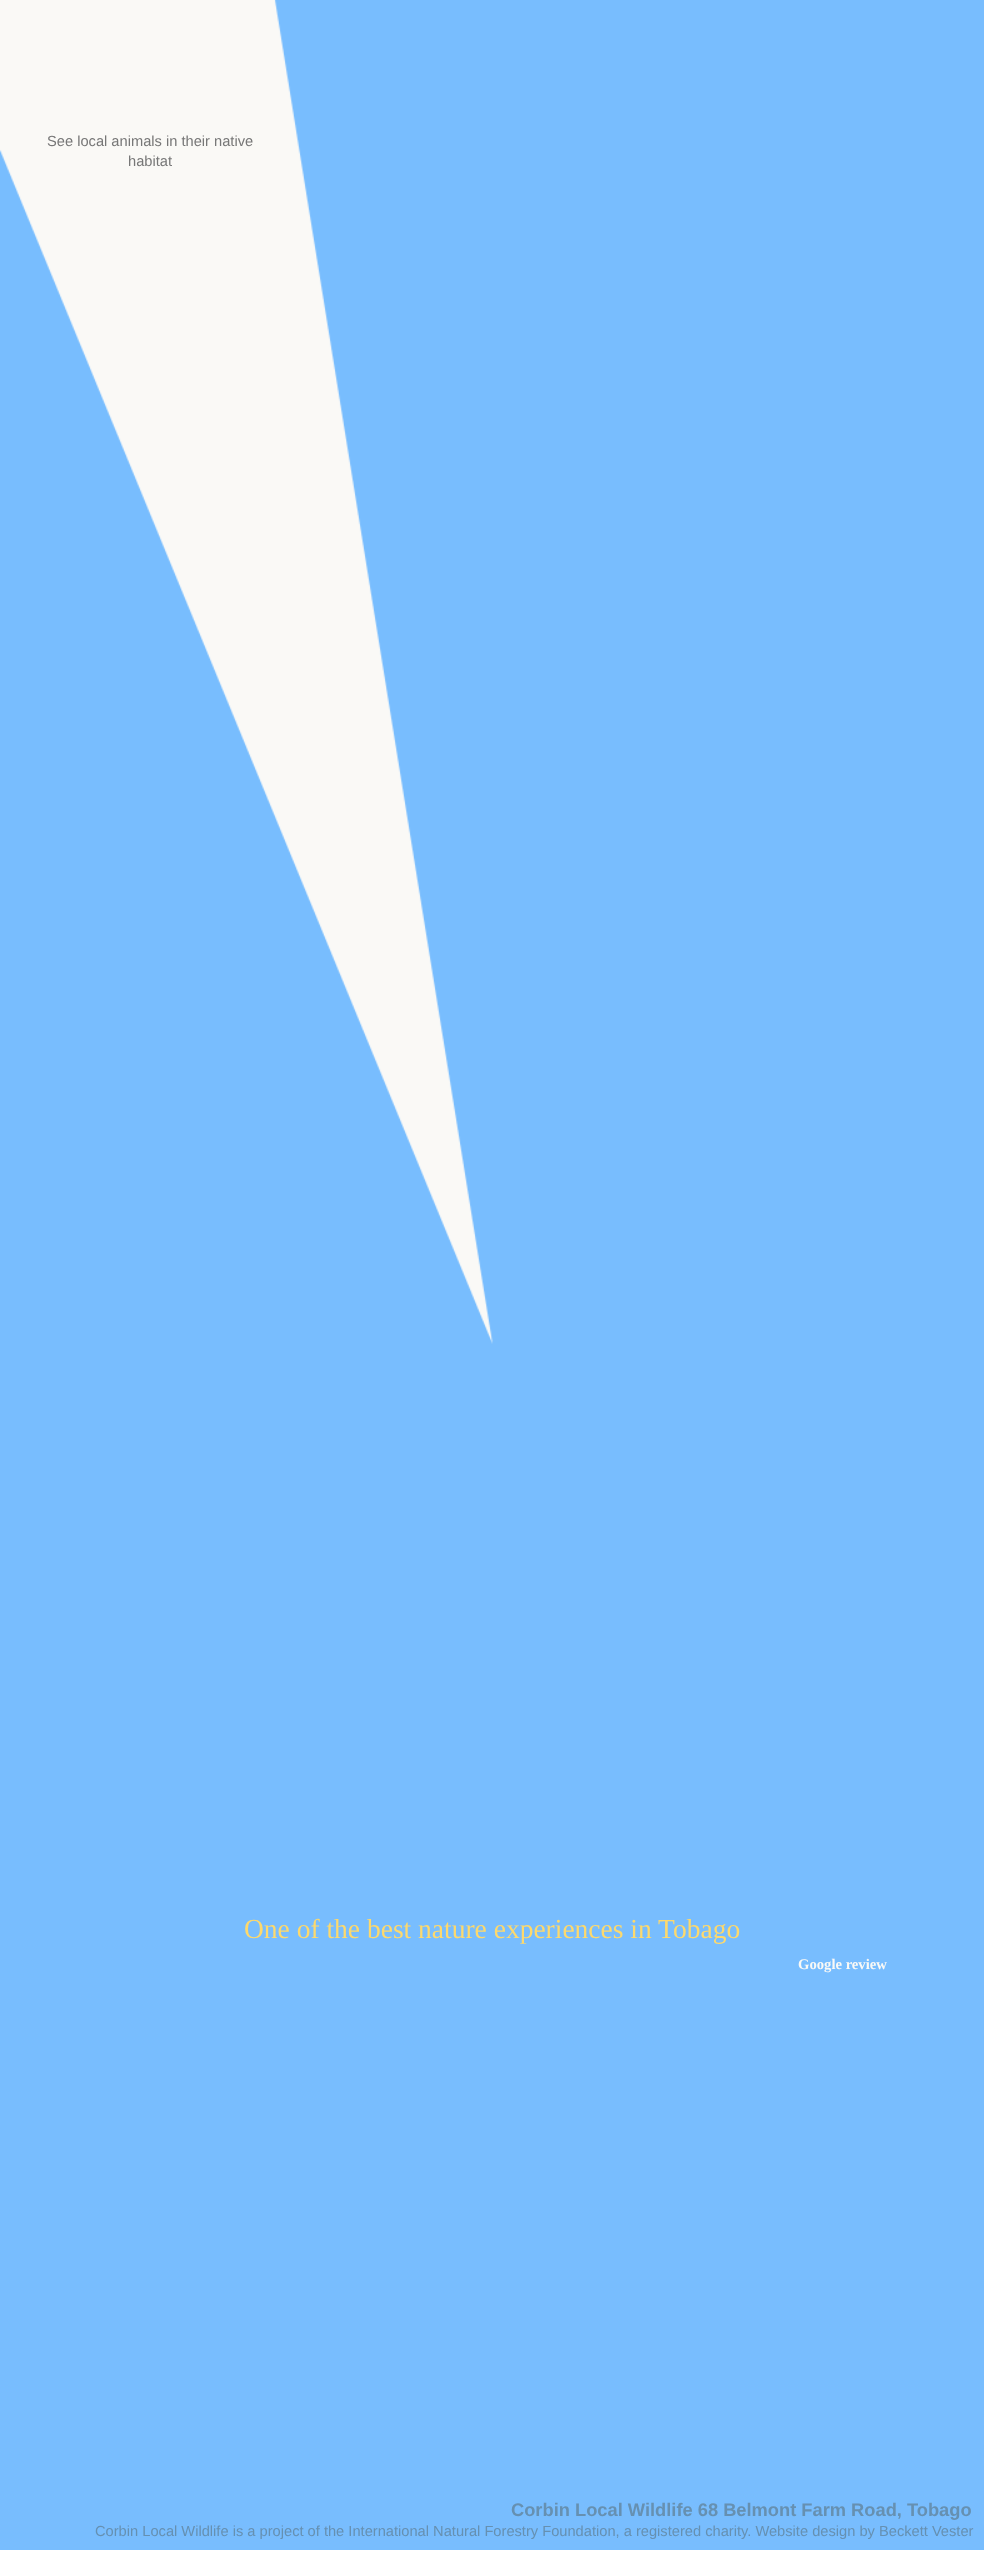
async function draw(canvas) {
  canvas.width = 984;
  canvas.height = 2550;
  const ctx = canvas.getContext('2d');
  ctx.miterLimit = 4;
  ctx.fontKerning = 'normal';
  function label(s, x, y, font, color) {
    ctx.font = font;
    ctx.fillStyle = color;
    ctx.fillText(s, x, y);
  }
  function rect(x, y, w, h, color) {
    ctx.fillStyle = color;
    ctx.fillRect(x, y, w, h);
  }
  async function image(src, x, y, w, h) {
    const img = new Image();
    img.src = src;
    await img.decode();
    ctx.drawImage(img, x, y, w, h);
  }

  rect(0, 0, 984, 2550, '#78bdfe');
  await image('assets/img1.png', 0, 0, 493, 1344);
  label('See local animals in their native', 47, 146, '14.67px Liberation Sans', '#777');
  label('habitat', 128, 166, '14.67px Liberation Sans', '#777');
  label('One of the best nature experiences in Tobago', 244, 1938, '27.5px Liberation Serif', '#fdd96d');
  label('Google review', 798, 1969, 'bold 14.67px Liberation Serif', '#faf9f6');
  label('Corbin Local Wildlife 68 Belmont Farm Road, Tobago', 511, 2516, 'bold 18.3px Liberation Sans', '#6690b1');
  label('Corbin Local Wildlife is a project of the International Natural Forestry Foundation, a registered charity. Website design by Beckett Vester', 95, 2536, '14.67px Liberation Sans', '#6690b1');
}

draw(document.querySelector('canvas'));
